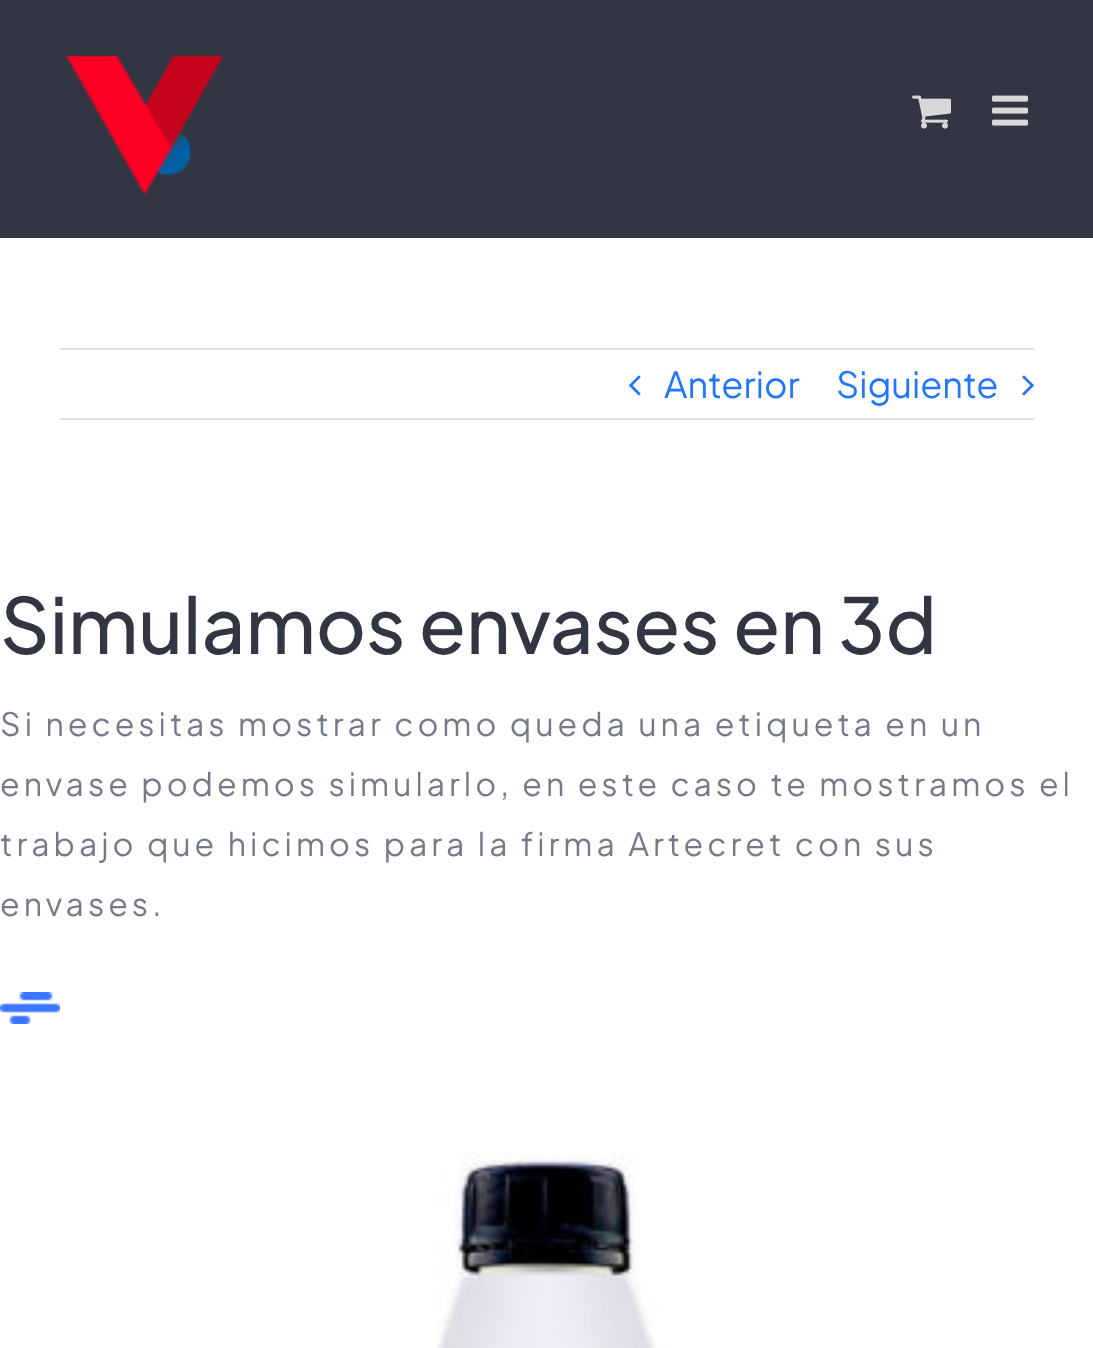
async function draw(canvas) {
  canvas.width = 1093;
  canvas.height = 1348;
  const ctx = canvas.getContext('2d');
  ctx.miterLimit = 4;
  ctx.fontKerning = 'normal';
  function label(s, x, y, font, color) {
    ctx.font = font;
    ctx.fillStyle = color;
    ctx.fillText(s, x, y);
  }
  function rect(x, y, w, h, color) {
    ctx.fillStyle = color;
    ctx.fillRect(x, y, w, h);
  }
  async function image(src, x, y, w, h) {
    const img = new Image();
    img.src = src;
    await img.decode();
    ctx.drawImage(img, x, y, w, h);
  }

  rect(0, 0, 1093, 1348, '#fff');
  rect(0, 0, 1093, 238, '#323643');
  await image('assets/img1.png', 65, 55, 159, 140);
  await image('assets/img2.png', 912, 95, 39, 34);
  await image('assets/img3.png', 992, 95, 36, 31);
  rect(60, 348, 974, 2, '#e0dede');
  rect(60, 418, 974, 2, '#e0dede');
  await image('assets/img4.png', 629, 375, 12, 21);
  label('Anterior', 664, 398, '36px Plus Jakarta Sans', '#2176ff');
  label('Siguiente', 836, 398, '36px Plus Jakarta Sans', '#2176ff');
  await image('assets/img5.png', 1022, 375, 12, 21);
  label('Simulamos envases en 3d', 0, 654, '500 77px Plus Jakarta Sans', '#323643');
  ctx.letterSpacing = '4px';
  label('Si necesitas mostrar como queda una etiqueta en un', 0, 736, '32px Plus Jakarta Sans', '#747a87');
  label('envase podemos simularlo, en este caso te mostramos el', 0, 796, '32px Plus Jakarta Sans', '#747a87');
  label('trabajo que hicimos para la firma Artecret con sus', 0, 856, '32px Plus Jakarta Sans', '#747a87');
  label('envases.', 0, 916, '32px Plus Jakarta Sans', '#747a87');
  await image('assets/img6.png', 0, 992, 60, 32);
  await image('assets/img7.png', 436, 1152, 657, 196);
}

draw(document.querySelector('canvas'));
